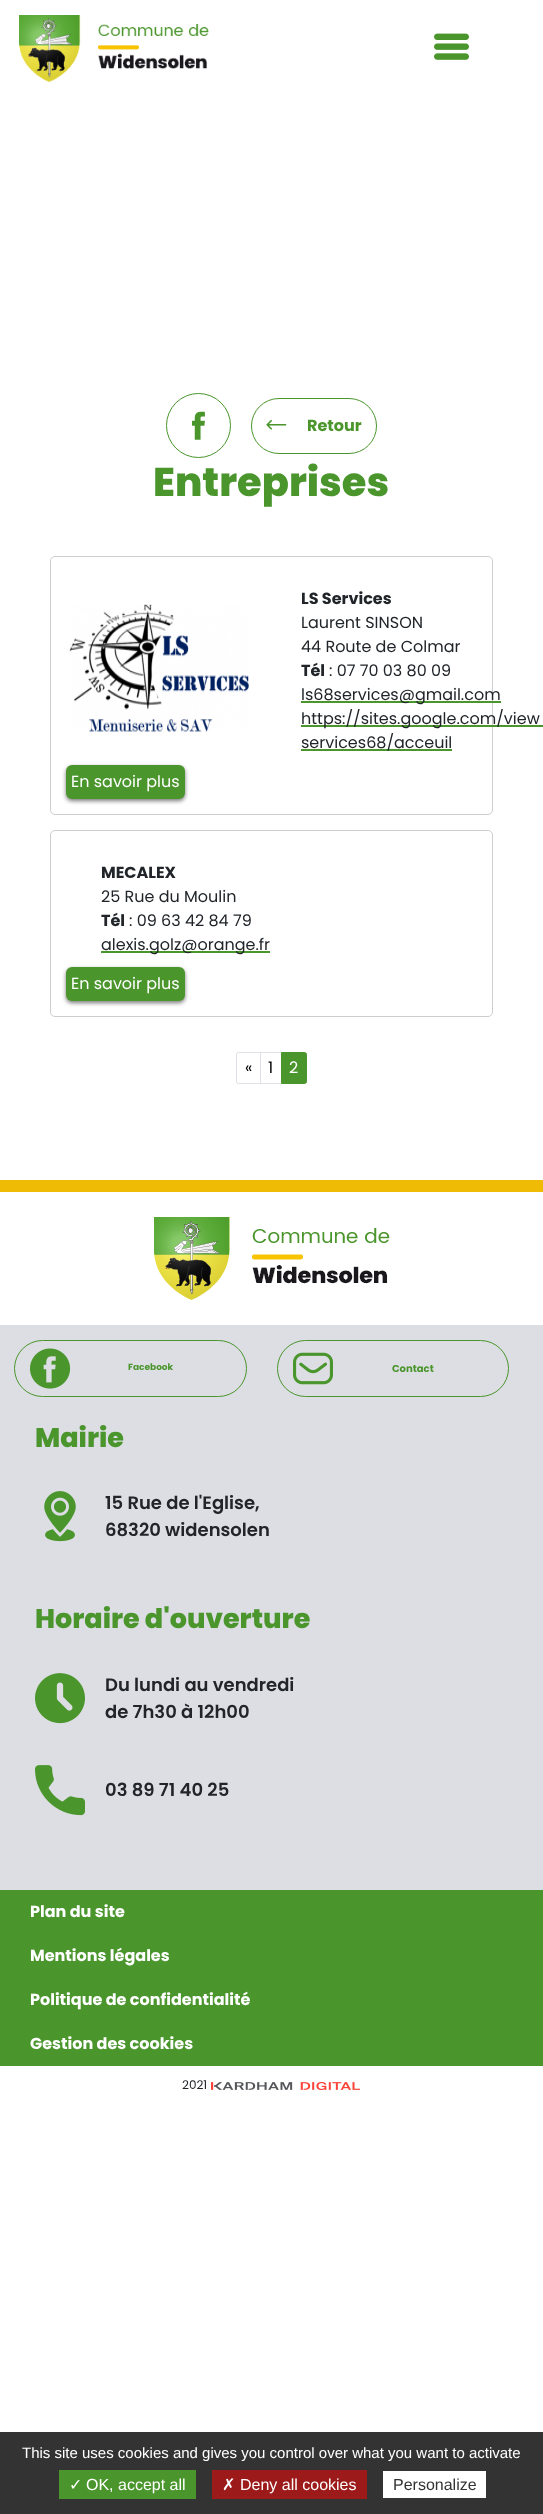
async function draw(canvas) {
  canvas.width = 543;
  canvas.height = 2514;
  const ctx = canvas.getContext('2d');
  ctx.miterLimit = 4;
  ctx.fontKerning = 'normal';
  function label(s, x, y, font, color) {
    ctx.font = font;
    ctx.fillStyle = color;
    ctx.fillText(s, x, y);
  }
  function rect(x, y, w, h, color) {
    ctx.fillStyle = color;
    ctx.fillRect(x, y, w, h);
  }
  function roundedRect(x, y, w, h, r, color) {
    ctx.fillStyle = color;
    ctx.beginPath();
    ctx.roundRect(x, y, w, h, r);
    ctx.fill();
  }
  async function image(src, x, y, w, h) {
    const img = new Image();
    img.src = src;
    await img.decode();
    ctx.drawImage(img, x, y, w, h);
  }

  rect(0, 0, 543, 2514, '#fff');
  await image('assets/img1.png', 19, 15, 190, 67);
  await image('assets/img2.png', 434, 33, 35, 27);
  ctx.beginPath();
  ctx.arc(198.5, 425.5, 32, 0, 2 * Math.PI);
  ctx.strokeStyle = '#4a952c';
  ctx.stroke();
  await image('assets/img3.png', 192, 411, 13, 29);
  ctx.beginPath();
  ctx.roundRect(251.5, 398.5, 125, 55, 27.5);
  ctx.stroke();
  await image('assets/img4.png', 266, 420, 21, 10);
  label('Retour', 307, 431, 'bold 16px Poppins', '#4a952c');
  label('Entreprises', 153, 496, '800 40px Poppins', '#4a952c');
  ctx.beginPath();
  ctx.roundRect(50.5, 556.5, 442, 258, 4.5);
  ctx.strokeStyle = '#cecece';
  ctx.stroke();
  await image('assets/img5.png', 69, 604, 180, 128);
  label('LS Services', 301, 604, 'bold 16px Poppins', '#212529');
  label('Laurent SINSON', 301, 628, '16px Poppins', '#212529');
  label('44 Route de Colmar', 301, 652, '16px Poppins', '#212529');
  label('Tél', 301, 676, 'bold 16px Poppins', '#212529');
  label(': 07 70 03 80 09', 329, 676, '16px Poppins', '#212529');
  rect(301, 701, 200, 2, '#4a952c');
  label('ls68services@gmail.com', 301, 700, '16px Poppins', '#212529');
  rect(301, 725, 242, 2, '#4a952c');
  label('https://sites.google.com/view', 301, 724, '16px Poppins', '#212529');
  rect(301, 749, 151, 2, '#4a952c');
  label('services68/acceuil', 301, 748, '16px Poppins', '#212529');
  ctx.fillStyle = '#00000085';
  ctx.filter = 'blur(2px)';
  ctx.beginPath();
  ctx.roundRect(66, 767, 119, 34, 6);
  ctx.fill();
  ctx.filter = 'none';
  roundedRect(66, 765, 119, 34, 6, '#4a952c');
  label('En savoir plus', 71, 787, '16px Poppins', '#fff');
  ctx.beginPath();
  ctx.roundRect(50.5, 830.5, 442, 186, 4.5);
  ctx.stroke();
  label('MECALEX', 101, 878, 'bold 16px Poppins', '#212529');
  label('25 Rue du Moulin', 101, 902, '16px Poppins', '#212529');
  label('Tél', 101, 926, 'bold 16px Poppins', '#212529');
  label(': 09 63 42 84 79', 129, 926, '16px Poppins', '#212529');
  rect(101, 951, 169, 2, '#4a952c');
  label('alexis.golz@orange.fr', 101, 950, '16px Poppins', '#212529');
  ctx.fillStyle = '#00000085';
  ctx.filter = 'blur(2px)';
  ctx.beginPath();
  ctx.roundRect(66, 969, 119, 34, 6);
  ctx.fill();
  ctx.filter = 'none';
  roundedRect(66, 967, 119, 34, 6, '#4a952c');
  label('En savoir plus', 71, 989, '16px Poppins', '#fff');
  ctx.beginPath();
  ctx.roundRect(236.5, 1052.5, 24, 31, [2, 0, 0, 2]);
  ctx.strokeStyle = '#dee2e6';
  ctx.stroke();
  label('«', 245, 1073, '16px Poppins', '#000');
  ctx.strokeRect(260.5, 1052.5, 21, 31);
  label('1', 268, 1073, '16px Poppins', '#000');
  ctx.fillStyle = '#4a952c';
  ctx.beginPath();
  ctx.roundRect(281.5, 1052.5, 25, 31, [0, 2, 2, 0]);
  ctx.fill();
  ctx.strokeStyle = '#4a952c';
  ctx.stroke();
  label('2', 289, 1073, '16px Poppins', '#fff');
  rect(0, 1325, 543, 565, '#dcdee4');
  rect(0, 1180, 543, 12, '#f0bb05');
  await image('assets/img6.png', 154, 1217, 236, 83);
  ctx.beginPath();
  ctx.roundRect(14.5, 1340.5, 232, 56, 28);
  ctx.stroke();
  await image('assets/img7.png', 30, 1348, 41, 41);
  label('Facebook', 128, 1370, 'bold 9px Poppins', '#4a952c');
  ctx.beginPath();
  ctx.roundRect(277.5, 1340.5, 231, 56, 28);
  ctx.stroke();
  await image('assets/img8.png', 293, 1352, 40, 33);
  label('Contact', 392, 1372, 'bold 10px Poppins', '#4a952c');
  label('Mairie', 35, 1447, '800 27px Poppins', '#4a952c');
  await image('assets/img9.png', 44, 1491, 32, 51);
  label('15 Rue de l\'Eglise,', 105, 1509, '600 18px Poppins', '#212529');
  label('68320 widensolen', 105, 1536, '600 18px Poppins', '#212529');
  label('Horaire d\'ouverture', 35, 1628, '800 27px Poppins', '#4a952c');
  await image('assets/img10.png', 35, 1673, 50, 51);
  label('Du lundi au vendredi', 105, 1691, '600 18px Poppins', '#212529');
  label('de 7h30 à 12h00', 105, 1718, '600 18px Poppins', '#212529');
  await image('assets/img11.png', 35, 1765, 50, 51);
  label('03 89 71 40 25', 105, 1796, '600 18px Poppins', '#212529');
  rect(0, 1890, 543, 176, '#4a952c');
  label('Plan du site', 30, 1917, 'bold 16px Poppins', '#fff');
  label('Mentions légales', 30, 1961, 'bold 16px Poppins', '#fff');
  label('Politique de confidentialité', 30, 2005, 'bold 16px Poppins', '#fff');
  label('Gestion des cookies', 30, 2049, 'bold 16px Poppins', '#fff');
  label('2021', 182, 2089, '12px Poppins', '#212529');
  await image('assets/img12.png', 211, 2082, 149, 8);
  rect(0, 2432, 543, 82, '#333');
  label('This site uses cookies and gives you control over what you want to activate', 22, 2458, '15px Liberation Sans', '#fff');
  rect(59, 2470, 137, 29, '#4a952c');
  label('✓', 69, 2490, '16px DejaVu Sans', '#fff');
  label('OK, accept all', 86, 2490, '16px Liberation Sans', '#fff');
  rect(212, 2470, 155, 29, '#9c1a1a');
  label('✗', 222, 2490, '16px DejaVu Sans', '#fff');
  label('Deny all cookies', 240, 2490, '16px Liberation Sans', '#fff');
  rect(383, 2471, 103, 27, '#fff');
  label('Personalize', 393, 2490, '16px Liberation Sans', '#333');
}

draw(document.querySelector('canvas'));
